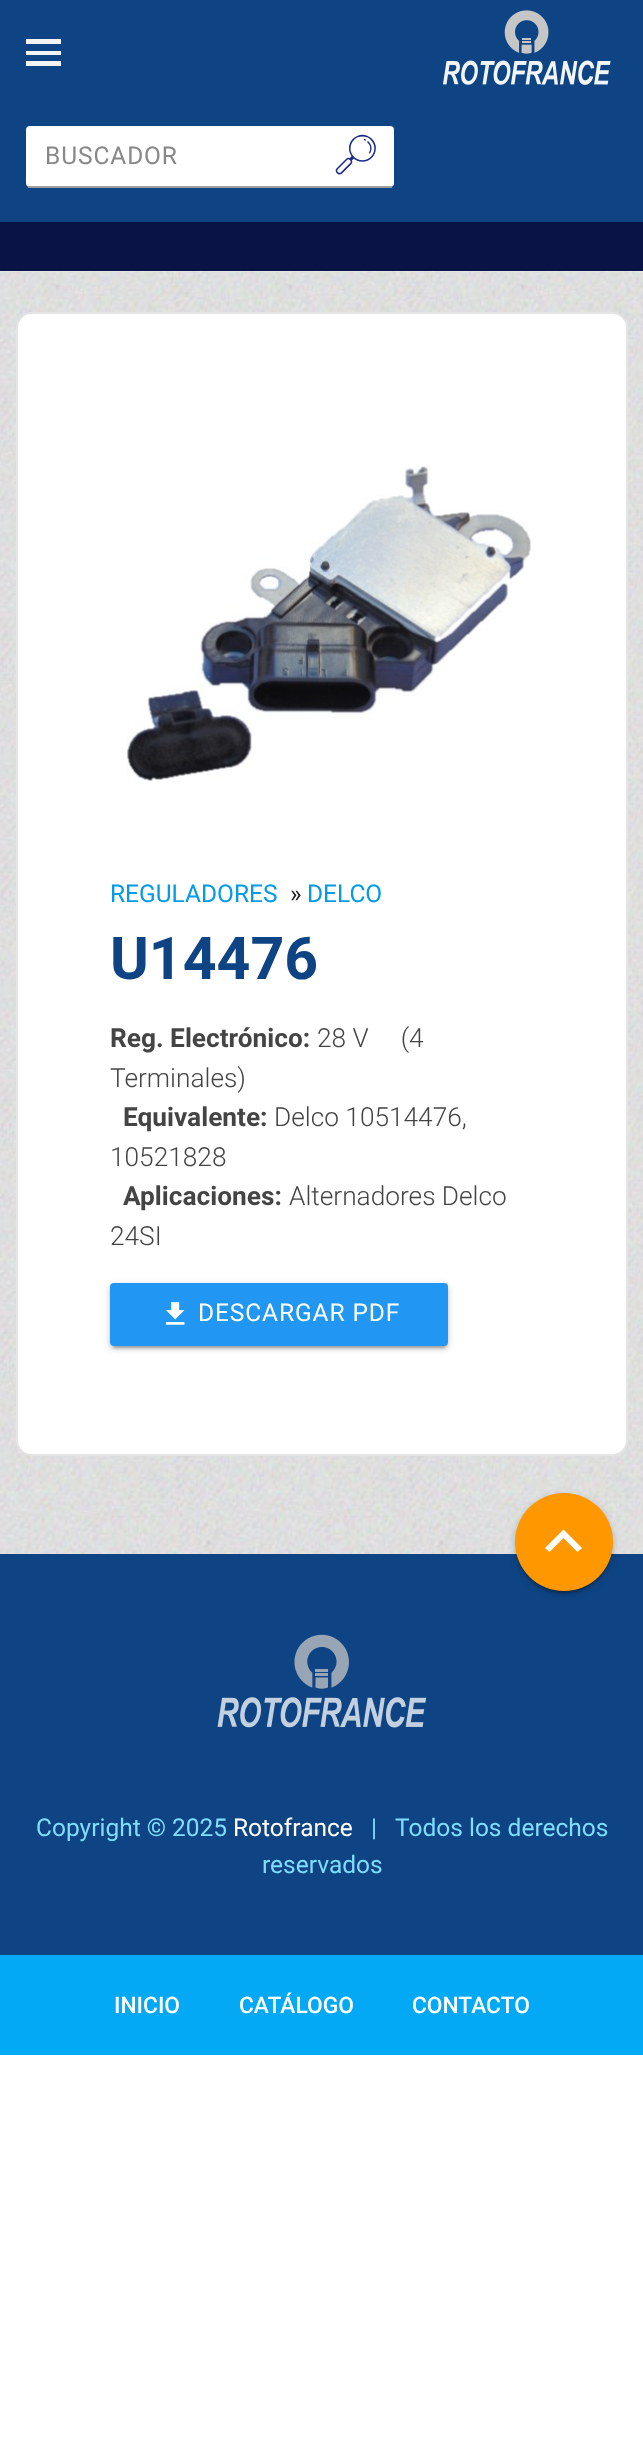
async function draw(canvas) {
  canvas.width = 643;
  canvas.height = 2446;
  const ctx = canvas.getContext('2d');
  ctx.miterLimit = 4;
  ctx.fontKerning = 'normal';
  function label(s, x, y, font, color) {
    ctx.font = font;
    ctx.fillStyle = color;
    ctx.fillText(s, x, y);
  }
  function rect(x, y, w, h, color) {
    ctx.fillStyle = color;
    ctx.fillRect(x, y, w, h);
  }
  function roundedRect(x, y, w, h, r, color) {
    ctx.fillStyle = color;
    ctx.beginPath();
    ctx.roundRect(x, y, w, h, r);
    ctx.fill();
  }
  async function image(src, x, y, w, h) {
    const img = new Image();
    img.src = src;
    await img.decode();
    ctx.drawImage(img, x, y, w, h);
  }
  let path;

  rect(0, 0, 643, 2446, '#fff');
  rect(0, 0, 643, 222, '#0f4484');
  rect(26, 39, 35, 5, '#f4f4f4');
  rect(26, 51, 35, 4, '#f4f4f4');
  rect(26, 61, 35, 5, '#f4f4f4');
  await image('assets/img1.png', 443, 10, 168, 75);
  roundedRect(26, 126, 368, 61, 4, '#fff');
  rect(28, 186, 364, 2, '#9e9e9e');
  ctx.letterSpacing = '0.9px';
  label('BUSCADOR', 45, 164, '24.5px Roboto', '#888');
  label('🔎︎', 331, 168, '39px Noto Emoji', '#1a2b89');
  rect(0, 222, 643, 49, '#0a1345');
  await image('assets/img2.png', 0, 271, 643, 1283);
  roundedRect(16, 312, 612, 1144, 16, '#fff');
  ctx.beginPath();
  ctx.roundRect(17, 313, 610, 1142, 15);
  ctx.strokeStyle = '#0000001a';
  ctx.lineWidth = 2;
  ctx.stroke();
  await image('assets/img3.png', 126, 466, 405, 317);
  ctx.letterSpacing = '0px';
  label('REGULADORES', 110, 902, '24.5px Roboto', '#039be5');
  label('»', 290, 902, '24.5px Roboto', '#212121');
  label('DELCO', 307, 902, '24.5px Roboto', '#039be5');
  label('U14476', 110, 979, 'bold 59px Roboto', '#0f4484');
  label('Reg. Electrónico:', 110, 1047, 'bold 26.25px Roboto', '#444');
  label('28 V     (4', 317, 1047, '300 26.25px Roboto', '#444');
  label('Terminales)', 110, 1087, '300 26.25px Roboto', '#444');
  label('Equivalente:', 123, 1126, 'bold 26.25px Roboto', '#444');
  label('Delco 10514476,', 274, 1126, '300 26.25px Roboto', '#444');
  label('10521828', 110, 1166, '300 26.25px Roboto', '#444');
  label('Aplicaciones:', 123, 1205, 'bold 26.25px Roboto', '#444');
  label('Alternadores Delco', 289, 1205, '300 26.25px Roboto', '#444');
  label('24SI', 110, 1245, '300 26.25px Roboto', '#444');
  ctx.fillStyle = '#00000033';
  ctx.filter = 'blur(1px)';
  ctx.beginPath();
  ctx.rect(114, 1292, 331, 56);
  ctx.fill();
  ctx.filter = 'none';
  ctx.fillStyle = '#0000001f';
  ctx.filter = 'blur(4.5px)';
  ctx.beginPath();
  ctx.roundRect(110, 1285, 338, 63, 4);
  ctx.fill();
  ctx.filter = 'none';
  ctx.fillStyle = '#00000024';
  ctx.filter = 'blur(2px)';
  ctx.beginPath();
  ctx.roundRect(110, 1286, 338, 63, 4);
  ctx.fill();
  ctx.filter = 'none';
  roundedRect(110, 1283, 338, 63, 4, '#2196f3');
  await image('assets/img4.png', 165, 1302, 20, 23);
  ctx.letterSpacing = '0.9px';
  label('DESCARGAR PDF', 198, 1321, '24.5px Roboto', '#fff');
  rect(0, 1554, 643, 401, '#0f4484');
  ctx.fillStyle = '#00000033';
  ctx.filter = 'blur(1px)';
  ctx.beginPath();
  ctx.roundRect(518, 1502, 91, 91, 45.5);
  ctx.fill();
  ctx.filter = 'none';
  ctx.fillStyle = '#0000001f';
  ctx.filter = 'blur(4.5px)';
  ctx.beginPath();
  ctx.roundRect(515, 1495, 98, 98, 49);
  ctx.fill();
  ctx.filter = 'none';
  ctx.fillStyle = '#00000024';
  ctx.filter = 'blur(2px)';
  ctx.beginPath();
  ctx.roundRect(515, 1496, 98, 98, 49);
  ctx.fill();
  ctx.filter = 'none';
  ctx.fillStyle = '#ff9800';
  ctx.beginPath();
  ctx.arc(564, 1542, 49, 0, 2 * Math.PI);
  ctx.fill();
  ctx.fillStyle = '#fff';
  path = new Path2D('M549.5 1552L545 1548L563.5 1529.5L582 1548L577.5 1552L563.5 1538Z');
  ctx.fill(path);
  await image('assets/img5.png', 217, 1634, 210, 94);
  ctx.letterSpacing = '0px';
  label('Copyright © 2025', 36, 1836, '24.5px Roboto', '#81ddff');
  label('Rotofrance', 233, 1836, '24.5px Roboto', '#fff');
  label('|', 371, 1836, '24.5px Roboto', '#81ddff');
  label('Todos los derechos', 395, 1836, '24.5px Roboto', '#81ddff');
  label('reservados', 262, 1873, '24.5px Roboto', '#81ddff');
  rect(0, 1955, 643, 100, '#03a9f4');
  label('INICIO', 114, 2013, '500 22.75px Roboto', '#fff');
  label('CATÁLOGO', 239, 2013, '500 22.75px Roboto', '#fff');
  label('CONTACTO', 412, 2013, '500 22.75px Roboto', '#fff');
}

draw(document.querySelector('canvas'));
